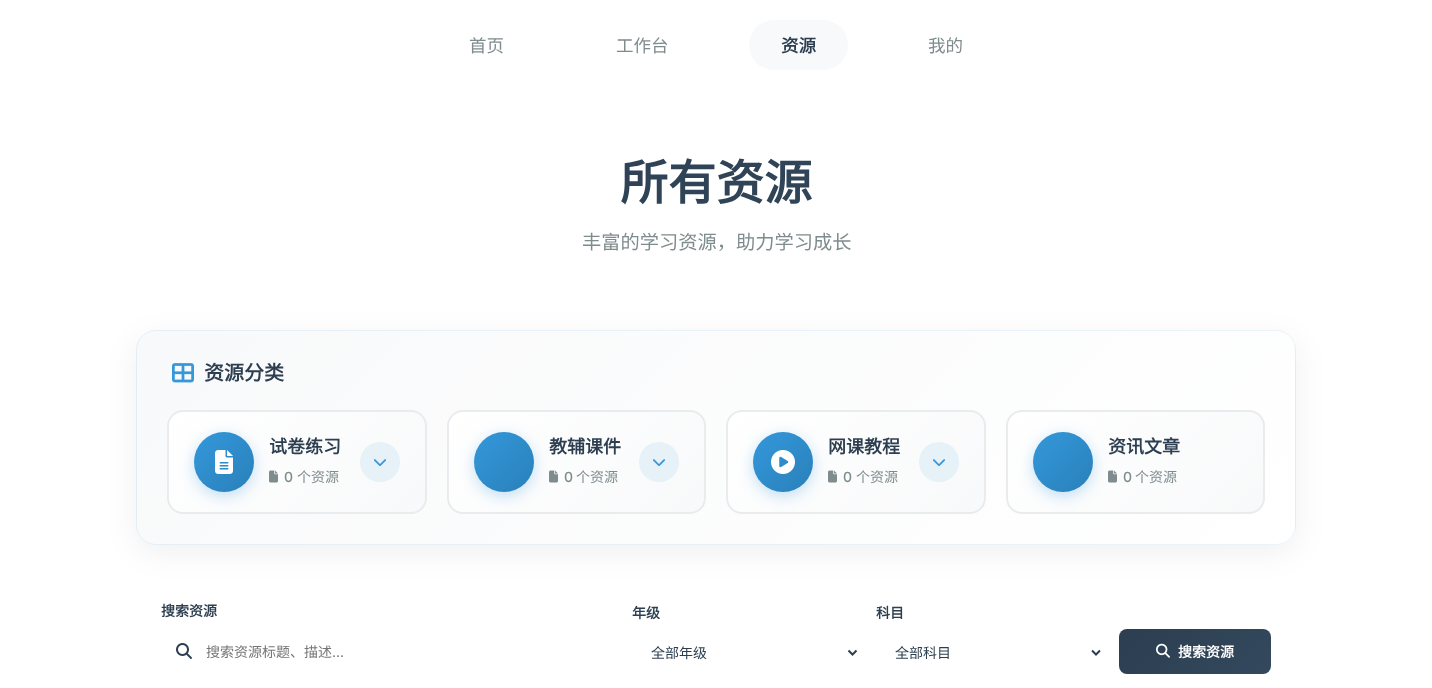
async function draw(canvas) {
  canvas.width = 1432;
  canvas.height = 688;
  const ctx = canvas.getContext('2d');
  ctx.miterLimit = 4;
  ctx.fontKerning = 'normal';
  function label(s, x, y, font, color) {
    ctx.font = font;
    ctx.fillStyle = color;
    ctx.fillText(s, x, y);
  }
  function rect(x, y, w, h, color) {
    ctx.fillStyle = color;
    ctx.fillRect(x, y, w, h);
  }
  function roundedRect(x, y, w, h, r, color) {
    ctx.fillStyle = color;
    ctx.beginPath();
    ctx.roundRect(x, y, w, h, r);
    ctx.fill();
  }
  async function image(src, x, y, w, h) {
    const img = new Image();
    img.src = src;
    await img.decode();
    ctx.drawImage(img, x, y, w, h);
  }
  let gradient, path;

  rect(0, 0, 1432, 688, '#fff');
  label('首页', 469, 52, '17.5px Noto Sans CJK SC', '#7f8c8d');
  label('工作台', 616, 52, '17.5px Noto Sans CJK SC', '#7f8c8d');
  roundedRect(749, 20, 99, 50, 25, '#f8f9fa');
  label('资源', 781, 52, 'bold 17.5px Noto Sans CJK SC', '#2c3e50');
  label('我的', 928, 52, '17.5px Noto Sans CJK SC', '#7f8c8d');
  ctx.font = 'bold 48px Noto Sans CJK SC';
  gradient = ctx.createLinearGradient(412, -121, 1020, 488);
  gradient.addColorStop(0, '#2c3e50');
  gradient.addColorStop(1, '#34495e');
  ctx.fillStyle = gradient;
  ctx.fillText('所有资源', 620, 200);
  label('丰富的学习资源，助力学习成长', 582, 249, '19.25px Noto Sans CJK SC', '#7f8c8d');
  ctx.fillStyle = '#0000000f';
  ctx.filter = 'blur(15px)';
  ctx.beginPath();
  ctx.roundRect(136, 338, 1160, 215, 20);
  ctx.fill();
  ctx.filter = 'none';
  ctx.save();
  ctx.beginPath();
  ctx.roundRect(136, 330, 1160, 215, 20);
  ctx.clip();
  gradient = ctx.createLinearGradient(373, -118, 1059, 567);
  gradient.addColorStop(0, '#f8f9fa');
  gradient.addColorStop(1, '#fff');
  ctx.fillStyle = gradient;
  ctx.fillRect(150, 330, 1132, 1);
  gradient = ctx.createLinearGradient(373, 95, 1059, 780);
  gradient.addColorStop(0, '#f8f9fa');
  gradient.addColorStop(1, '#fff');
  ctx.fillStyle = gradient;
  ctx.fillRect(137, 331, 1158, 213);
  gradient = ctx.createLinearGradient(373, 308, 1059, 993);
  gradient.addColorStop(0, '#f8f9fa');
  gradient.addColorStop(1, '#fff');
  ctx.fillStyle = gradient;
  ctx.fillRect(150, 544, 1132, 1);
  ctx.restore();
  ctx.beginPath();
  ctx.roundRect(136.5, 330.5, 1159, 214, 19.5);
  ctx.strokeStyle = '#3498db1a';
  ctx.stroke();
  await image('assets/img1.png', 172, 363, 22, 20);
  label('资源分类', 204, 380, 'bold 20px Noto Sans CJK SC', '#2c3e50');
  ctx.save();
  ctx.beginPath();
  ctx.roundRect(167, 410, 260, 104, 16);
  ctx.clip();
  gradient = ctx.createLinearGradient(208, 373, 386, 551);
  gradient.addColorStop(0, '#fff');
  gradient.addColorStop(1, '#f8f9fa');
  ctx.fillStyle = gradient;
  ctx.fillRect(169, 412, 256, 100);
  ctx.restore();
  ctx.beginPath();
  ctx.roundRect(168, 411, 258, 102, 15);
  ctx.strokeStyle = '#e9ecef';
  ctx.lineWidth = 2;
  ctx.stroke();
  ctx.fillStyle = '#3498db4d';
  ctx.filter = 'blur(7.5px)';
  ctx.beginPath();
  ctx.roundRect(194, 436, 60, 60, 30);
  ctx.fill();
  ctx.filter = 'none';
  gradient = ctx.createLinearGradient(194, 432, 254, 492);
  gradient.addColorStop(0, '#3498db');
  gradient.addColorStop(1, '#2980b9');
  ctx.fillStyle = gradient;
  ctx.beginPath();
  ctx.arc(224, 462, 30, 0, 2 * Math.PI);
  ctx.fill();
  await image('assets/img2.png', 215, 450, 18, 24);
  label('试卷练习', 269, 453, 'bold 18px Noto Sans CJK SC', '#2c3e50');
  await image('assets/img3.png', 269, 470, 9, 13);
  label('0', 284, 482, '500 14px Inter', '#7f8c8d');
  label('个资源', 297, 482, '14px Noto Sans CJK SC', '#7f8c8d');
  ctx.fillStyle = '#e6f1f8';
  ctx.beginPath();
  ctx.arc(380, 462, 20, 0, 2 * Math.PI);
  ctx.fill();
  await image('assets/img4.png', 374, 459, 12, 7);
  ctx.save();
  ctx.beginPath();
  ctx.roundRect(447, 410, 259, 104, 16);
  ctx.clip();
  gradient = ctx.createLinearGradient(488, 373, 665, 551);
  gradient.addColorStop(0, '#fff');
  gradient.addColorStop(1, '#f8f9fa');
  ctx.fillStyle = gradient;
  ctx.fillRect(449, 412, 255, 100);
  ctx.restore();
  ctx.beginPath();
  ctx.roundRect(448, 411, 257, 102, 15);
  ctx.stroke();
  ctx.fillStyle = '#3498db4d';
  ctx.filter = 'blur(7.5px)';
  ctx.beginPath();
  ctx.roundRect(474, 436, 60, 60, 30);
  ctx.fill();
  ctx.filter = 'none';
  gradient = ctx.createLinearGradient(474, 432, 534, 492);
  gradient.addColorStop(0, '#3498db');
  gradient.addColorStop(1, '#2980b9');
  ctx.fillStyle = gradient;
  ctx.beginPath();
  ctx.arc(504, 462, 30, 0, 2 * Math.PI);
  ctx.fill();
  label('教辅课件', 549, 453, 'bold 18px Noto Sans CJK SC', '#2c3e50');
  await image('assets/img5.png', 549, 470, 9, 13);
  label('0', 564, 482, '500 14px Inter', '#7f8c8d');
  label('个资源', 576, 482, '14px Noto Sans CJK SC', '#7f8c8d');
  ctx.fillStyle = '#e6f1f8';
  ctx.beginPath();
  ctx.arc(659, 462, 20, 0, 2 * Math.PI);
  ctx.fill();
  await image('assets/img4.png', 653, 459, 12, 7);
  ctx.save();
  ctx.beginPath();
  ctx.roundRect(726, 410, 260, 104, 16);
  ctx.clip();
  gradient = ctx.createLinearGradient(767, 373, 945, 551);
  gradient.addColorStop(0, '#fff');
  gradient.addColorStop(1, '#f8f9fa');
  ctx.fillStyle = gradient;
  ctx.fillRect(728, 412, 256, 100);
  ctx.restore();
  ctx.beginPath();
  ctx.roundRect(727, 411, 258, 102, 15);
  ctx.stroke();
  ctx.fillStyle = '#3498db4d';
  ctx.filter = 'blur(7.5px)';
  ctx.beginPath();
  ctx.roundRect(753, 436, 60, 60, 30);
  ctx.fill();
  ctx.filter = 'none';
  gradient = ctx.createLinearGradient(753, 432, 813, 492);
  gradient.addColorStop(0, '#3498db');
  gradient.addColorStop(1, '#2980b9');
  ctx.fillStyle = gradient;
  ctx.beginPath();
  ctx.arc(783, 462, 30, 0, 2 * Math.PI);
  ctx.fill();
  await image('assets/img6.png', 771, 450, 24, 24);
  label('网课教程', 828, 453, 'bold 18px Noto Sans CJK SC', '#2c3e50');
  await image('assets/img3.png', 828, 470, 9, 13);
  label('0', 843, 482, '500 14px Inter', '#7f8c8d');
  label('个资源', 856, 482, '14px Noto Sans CJK SC', '#7f8c8d');
  ctx.fillStyle = '#e6f1f8';
  ctx.beginPath();
  ctx.arc(939, 462, 20, 0, 2 * Math.PI);
  ctx.fill();
  await image('assets/img4.png', 933, 459, 12, 7);
  ctx.save();
  ctx.beginPath();
  ctx.roundRect(1006, 410, 259, 104, 16);
  ctx.clip();
  gradient = ctx.createLinearGradient(1047, 373, 1224, 551);
  gradient.addColorStop(0, '#fff');
  gradient.addColorStop(1, '#f8f9fa');
  ctx.fillStyle = gradient;
  ctx.fillRect(1008, 412, 255, 100);
  ctx.restore();
  ctx.beginPath();
  ctx.roundRect(1007, 411, 257, 102, 15);
  ctx.stroke();
  ctx.fillStyle = '#3498db4d';
  ctx.filter = 'blur(7.5px)';
  ctx.beginPath();
  ctx.roundRect(1033, 436, 60, 60, 30);
  ctx.fill();
  ctx.filter = 'none';
  gradient = ctx.createLinearGradient(1033, 432, 1093, 492);
  gradient.addColorStop(0, '#3498db');
  gradient.addColorStop(1, '#2980b9');
  ctx.fillStyle = gradient;
  ctx.beginPath();
  ctx.arc(1063, 462, 30, 0, 2 * Math.PI);
  ctx.fill();
  label('资讯文章', 1108, 453, 'bold 18px Noto Sans CJK SC', '#2c3e50');
  await image('assets/img5.png', 1108, 470, 9, 13);
  label('0', 1123, 482, '500 14px Inter', '#7f8c8d');
  label('个资源', 1135, 482, '14px Noto Sans CJK SC', '#7f8c8d');
  label('搜索资源', 161, 616, 'bold 14px Noto Sans CJK SC', '#2c3e50');
  await image('assets/img7.png', 176, 643, 16, 16);
  label('搜索资源标题、描述', 206, 657, '14px Noto Sans CJK SC', '#757575');
  label('...', 332, 657, '14px Inter', '#757575');
  label('年级', 632, 618, 'bold 14px Noto Sans CJK SC', '#2c3e50');
  path = new Path2D('M848.5 650.5L852.5 654.5L856.5 650.5');
  ctx.strokeStyle = '#2c3e50';
  ctx.stroke(path);
  label('全部年级', 651, 658, '14px Noto Sans CJK SC', '#2c3e50');
  label('科目', 876, 618, 'bold 14px Noto Sans CJK SC', '#2c3e50');
  path = new Path2D('M1092 650.5L1096 654.5L1100 650.5');
  ctx.stroke(path);
  label('全部科目', 895, 658, '14px Noto Sans CJK SC', '#2c3e50');
  gradient = ctx.createLinearGradient(1146, 602, 1244, 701);
  gradient.addColorStop(0, '#2c3e50');
  gradient.addColorStop(1, '#34495e');
  ctx.fillStyle = gradient;
  ctx.beginPath();
  ctx.roundRect(1119, 629, 152, 45, 8);
  ctx.fill();
  await image('assets/img8.png', 1156, 643, 14, 15);
  label('搜索资源', 1178, 657, 'bold 14px Noto Sans CJK SC', '#fff');
}

draw(document.querySelector('canvas'));
